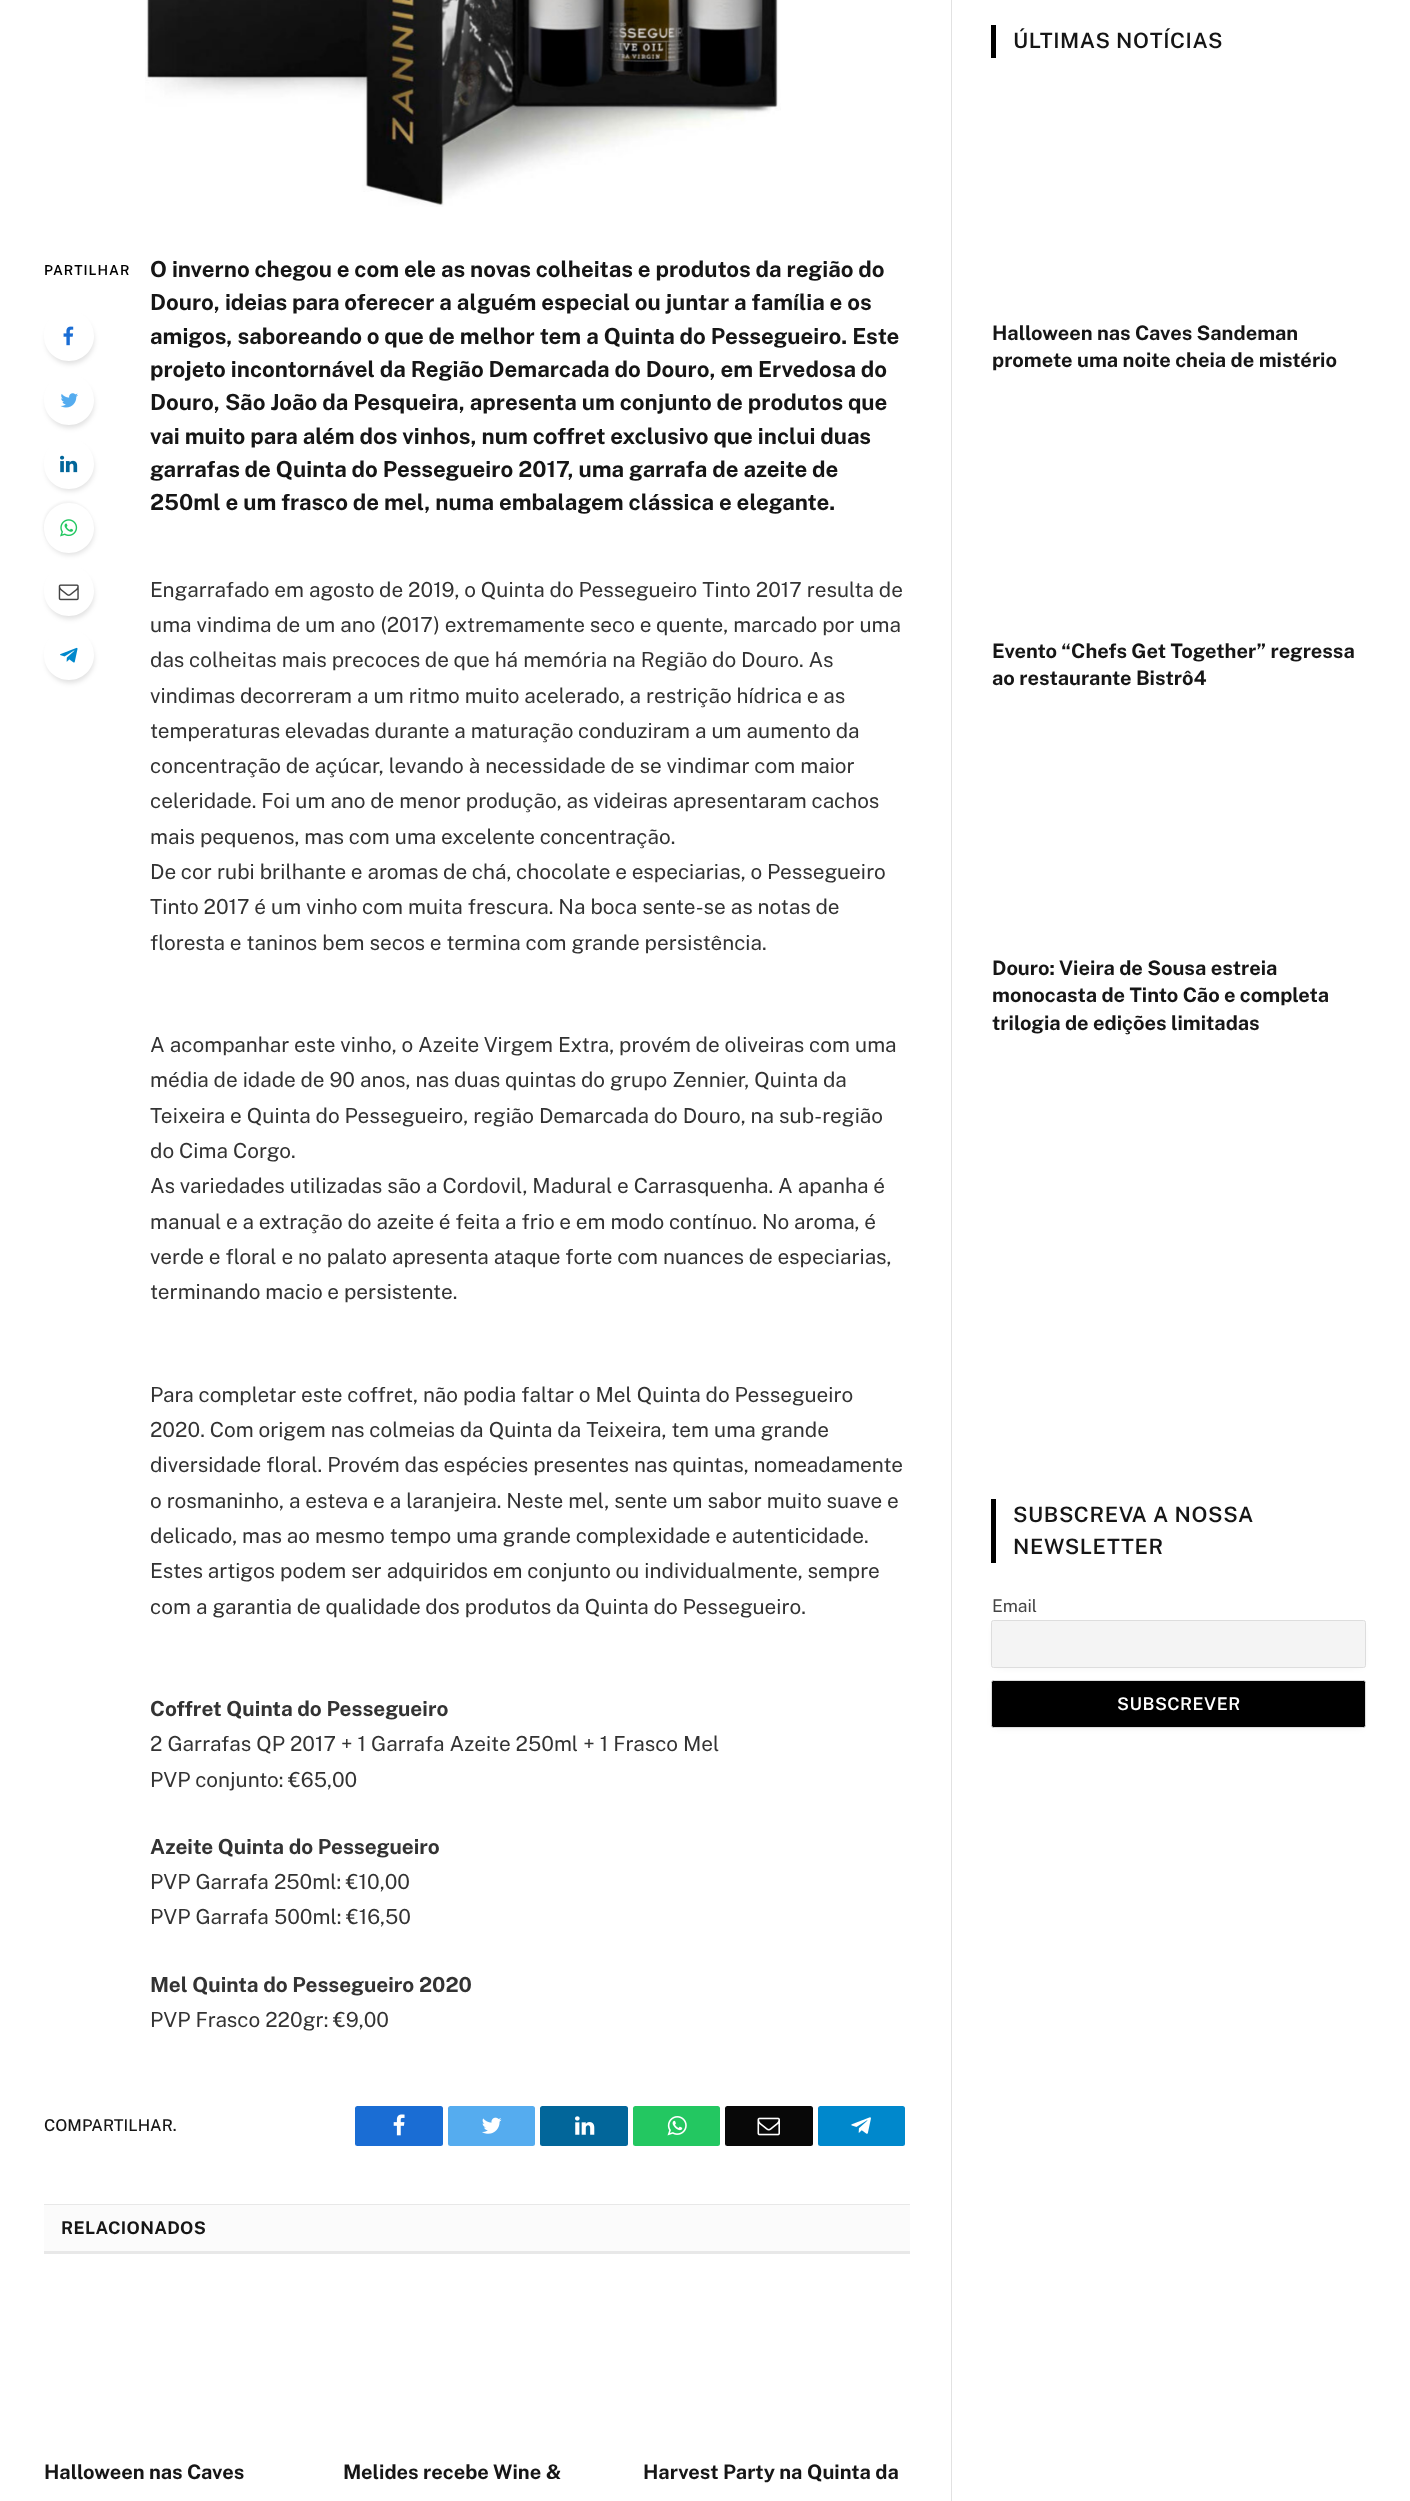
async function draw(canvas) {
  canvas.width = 1410;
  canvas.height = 2501;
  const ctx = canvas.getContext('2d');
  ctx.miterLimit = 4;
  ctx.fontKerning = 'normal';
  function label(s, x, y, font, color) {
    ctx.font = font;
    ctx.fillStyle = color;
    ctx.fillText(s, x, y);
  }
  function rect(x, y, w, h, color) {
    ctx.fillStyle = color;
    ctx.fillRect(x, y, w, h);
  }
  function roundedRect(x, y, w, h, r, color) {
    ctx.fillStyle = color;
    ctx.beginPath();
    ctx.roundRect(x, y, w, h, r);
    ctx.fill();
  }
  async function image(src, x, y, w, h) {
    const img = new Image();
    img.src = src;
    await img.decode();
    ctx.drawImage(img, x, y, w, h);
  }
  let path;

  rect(0, 0, 1410, 2501, '#fff');
  await image('assets/img1.png', 145, 0, 636, 207);
  ctx.letterSpacing = '1px';
  label('PARTILHAR', 44, 275, '600 13.75px Public Sans', '#000');
  ctx.save();
  path = new Path2D('M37 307H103V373H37ZM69 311C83 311 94 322 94 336C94 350 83 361 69 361C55 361 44 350 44 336C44 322 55 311 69 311Z');
  ctx.clip(path, 'evenodd');
  ctx.fillStyle = '#0000001f';
  ctx.filter = 'blur(2.5px)';
  ctx.beginPath();
  ctx.roundRect(46, 316, 48, 48, 24);
  ctx.fill();
  ctx.filter = 'none';
  ctx.restore();
  await image('assets/img2.png', 63, 326, 11, 20);
  ctx.save();
  path = new Path2D('M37 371H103V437H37ZM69 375C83 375 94 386 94 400C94 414 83 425 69 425C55 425 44 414 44 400C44 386 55 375 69 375Z');
  ctx.clip(path, 'evenodd');
  ctx.fillStyle = '#0000001f';
  ctx.filter = 'blur(2.5px)';
  ctx.beginPath();
  ctx.roundRect(46, 380, 48, 48, 24);
  ctx.fill();
  ctx.filter = 'none';
  ctx.restore();
  await image('assets/img3.png', 60, 393, 18, 15);
  ctx.save();
  path = new Path2D('M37 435H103V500H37ZM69 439C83 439 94 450 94 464C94 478 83 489 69 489C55 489 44 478 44 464C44 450 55 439 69 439Z');
  ctx.clip(path, 'evenodd');
  ctx.fillStyle = '#0000001f';
  ctx.filter = 'blur(2.5px)';
  ctx.beginPath();
  ctx.roundRect(46, 444, 48, 47, 23.5);
  ctx.fill();
  ctx.filter = 'none';
  ctx.restore();
  await image('assets/img4.png', 60, 455, 18, 18);
  ctx.save();
  path = new Path2D('M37 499H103V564H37ZM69 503C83 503 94 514 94 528C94 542 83 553 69 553C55 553 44 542 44 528C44 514 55 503 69 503Z');
  ctx.clip(path, 'evenodd');
  ctx.fillStyle = '#0000001f';
  ctx.filter = 'blur(2.5px)';
  ctx.beginPath();
  ctx.roundRect(46, 508, 48, 47, 23.5);
  ctx.fill();
  ctx.filter = 'none';
  ctx.restore();
  ctx.save();
  path = new Path2D('M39 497H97V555H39ZM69 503C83 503 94 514 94 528C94 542 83 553 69 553C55 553 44 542 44 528C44 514 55 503 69 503Z');
  ctx.clip(path, 'evenodd');
  ctx.fillStyle = '#0000000d';
  ctx.filter = 'blur(1px)';
  ctx.beginPath();
  ctx.roundRect(43, 501, 50, 50, 25);
  ctx.fill();
  ctx.filter = 'none';
  ctx.restore();
  await image('assets/img5.png', 60, 519, 18, 18);
  ctx.save();
  path = new Path2D('M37 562H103V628H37ZM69 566C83 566 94 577 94 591C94 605 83 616 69 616C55 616 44 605 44 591C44 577 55 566 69 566Z');
  ctx.clip(path, 'evenodd');
  ctx.fillStyle = '#0000001f';
  ctx.filter = 'blur(2.5px)';
  ctx.beginPath();
  ctx.roundRect(46, 571, 48, 48, 24);
  ctx.fill();
  ctx.filter = 'none';
  ctx.restore();
  await image('assets/img6.png', 58, 584, 21, 17);
  ctx.save();
  path = new Path2D('M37 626H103V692H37ZM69 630C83 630 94 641 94 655C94 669 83 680 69 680C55 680 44 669 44 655C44 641 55 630 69 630Z');
  ctx.clip(path, 'evenodd');
  ctx.fillStyle = '#0000001f';
  ctx.filter = 'blur(2.5px)';
  ctx.beginPath();
  ctx.roundRect(46, 635, 48, 48, 24);
  ctx.fill();
  ctx.filter = 'none';
  ctx.restore();
  await image('assets/img7.png', 60, 647, 18, 16);
  ctx.letterSpacing = '0px';
  label('O inverno chegou e com ele as novas colheitas e produtos da região do', 150, 277, 'bold 22.2px Public Sans', '#161616');
  label('Douro, ideias para oferecer a alguém especial ou juntar a família e os', 150, 310, 'bold 22.2px Public Sans', '#161616');
  label('amigos, saboreando o que de melhor tem a Quinta do Pessegueiro. Este', 150, 344, 'bold 22.2px Public Sans', '#161616');
  label('projeto incontornável da Região Demarcada do Douro, em Ervedosa do', 150, 377, 'bold 22.2px Public Sans', '#161616');
  label('Douro, São João da Pesqueira, apresenta um conjunto de produtos que', 150, 410, 'bold 22.2px Public Sans', '#161616');
  label('vai muito para além dos vinhos, num coffret exclusivo que inclui duas', 150, 444, 'bold 22.2px Public Sans', '#161616');
  label('garrafas de Quinta do Pessegueiro 2017, uma garrafa de azeite de', 150, 477, 'bold 22.2px Public Sans', '#161616');
  label('250ml e um frasco de mel, numa embalagem clássica e elegante.', 150, 510, 'bold 22.2px Public Sans', '#161616');
  label('Engarrafado em agosto de 2019, o Quinta do Pessegueiro Tinto 2017 resulta de', 150, 597, '20.75px Public Sans', '#333');
  label('uma vindima de um ano (2017) extremamente seco e quente, marcado por uma', 150, 632, '20.75px Public Sans', '#333');
  label('das colheitas mais precoces de que há memória na Região do Douro. As', 150, 667, '20.75px Public Sans', '#333');
  label('vindimas decorreram a um ritmo muito acelerado, a restrição hídrica e as', 150, 703, '20.75px Public Sans', '#333');
  label('temperaturas elevadas durante a maturação conduziram a um aumento da', 150, 738, '20.75px Public Sans', '#333');
  label('concentração de açúcar, levando à necessidade de se vindimar com maior', 150, 773, '20.75px Public Sans', '#333');
  label('celeridade. Foi um ano de menor produção, as videiras apresentaram cachos', 150, 808, '20.75px Public Sans', '#333');
  label('mais pequenos, mas com uma excelente concentração.', 150, 844, '20.75px Public Sans', '#333');
  label('De cor rubi brilhante e aromas de chá, chocolate e especiarias, o Pessegueiro', 150, 879, '20.75px Public Sans', '#333');
  label('Tinto 2017 é um vinho com muita frescura. Na boca sente-se as notas de', 150, 914, '20.75px Public Sans', '#333');
  label('floresta e taninos bem secos e termina com grande persistência.', 150, 950, '20.75px Public Sans', '#333');
  label('A acompanhar este vinho, o Azeite Virgem Extra, provém de oliveiras com uma', 150, 1052, '20.75px Public Sans', '#333');
  label('média de idade de 90 anos, nas duas quintas do grupo Zennier, Quinta da', 150, 1087, '20.75px Public Sans', '#333');
  label('Teixeira e Quinta do Pessegueiro, região Demarcada do Douro, na sub-região', 150, 1123, '20.75px Public Sans', '#333');
  label('do Cima Corgo.', 150, 1158, '20.75px Public Sans', '#333');
  label('As variedades utilizadas são a Cordovil, Madural e Carrasquenha. A apanha é', 150, 1193, '20.75px Public Sans', '#333');
  label('manual e a extração do azeite é feita a frio e em modo contínuo. No aroma, é', 150, 1229, '20.75px Public Sans', '#333');
  label('verde e floral e no palato apresenta ataque forte com nuances de especiarias,', 150, 1264, '20.75px Public Sans', '#333');
  label('terminando macio e persistente.', 150, 1299, '20.75px Public Sans', '#333');
  label('Para completar este coffret, não podia faltar o Mel Quinta do Pessegueiro', 150, 1402, '20.75px Public Sans', '#333');
  label('2020. Com origem nas colmeias da Quinta da Teixeira, tem uma grande', 150, 1437, '20.75px Public Sans', '#333');
  label('diversidade floral. Provém das espécies presentes nas quintas, nomeadamente', 150, 1472, '20.75px Public Sans', '#333');
  label('o rosmaninho, a esteva e a laranjeira. Neste mel, sente um sabor muito suave e', 150, 1508, '20.75px Public Sans', '#333');
  label('delicado, mas ao mesmo tempo uma grande complexidade e autenticidade.', 150, 1543, '20.75px Public Sans', '#333');
  label('Estes artigos podem ser adquiridos em conjunto ou individualmente, sempre', 150, 1578, '20.75px Public Sans', '#333');
  label('com a garantia de qualidade dos produtos da Quinta do Pessegueiro.', 150, 1614, '20.75px Public Sans', '#333');
  label('Coffret Quinta do Pessegueiro', 150, 1716, 'bold 20.75px Public Sans', '#333');
  label('2 Garrafas QP 2017 + 1 Garrafa Azeite 250ml + 1 Frasco Mel', 150, 1751, '20.75px Public Sans', '#333');
  label('PVP conjunto: €65,00', 150, 1787, '20.75px Public Sans', '#333');
  label('Azeite Quinta do Pessegueiro', 150, 1854, 'bold 20.75px Public Sans', '#333');
  label('PVP Garrafa 250ml: €10,00', 150, 1889, '20.75px Public Sans', '#333');
  label('PVP Garrafa 500ml: €16,50', 150, 1924, '20.75px Public Sans', '#333');
  label('Mel Quinta do Pessegueiro 2020', 150, 1992, 'bold 20.75px Public Sans', '#333');
  label('PVP Frasco 220gr: €9,00', 150, 2027, '20.75px Public Sans', '#333');
  label('COMPARTILHAR.', 44, 2131, '500 16.25px Public Sans', '#161616');
  roundedRect(355, 2106, 88, 40, 2.5, '#1a6dd4');
  await image('assets/img8.png', 393, 2114, 12, 22);
  roundedRect(448, 2106, 87, 40, 2.5, '#55acef');
  await image('assets/img9.png', 482, 2117, 20, 17);
  roundedRect(540, 2106, 88, 40, 2.5, '#02669a');
  await image('assets/img10.png', 575, 2116, 20, 19);
  roundedRect(633, 2106, 87, 40, 2.5, '#23c761');
  await image('assets/img11.png', 667, 2116, 20, 20);
  roundedRect(725, 2106, 88, 40, 2.5, '#080808');
  await image('assets/img12.png', 757, 2117, 23, 19);
  roundedRect(818, 2106, 87, 40, 2.5, '#08c');
  await image('assets/img13.png', 851, 2117, 20, 17);
  rect(44, 2205, 866, 46, '#fbfbfb');
  rect(44, 2204, 866, 1, '#e8e8e8');
  rect(44, 2251, 866, 3, '#e8e8e8');
  ctx.letterSpacing = '0.3px';
  label('RELACIONADOS', 61, 2234, 'bold 17.5px Public Sans', '#161616');
  ctx.letterSpacing = '0px';
  label('Halloween nas Caves', 44, 2479, 'bold 20px Public Sans', '#161616');
  label('Melides recebe Wine &', 343, 2479, 'bold 20px Public Sans', '#161616');
  label('Harvest Party na Quinta da', 643, 2479, 'bold 20px Public Sans', '#161616');
  rect(951, 0, 1, 2501, '#e2e2e2');
  rect(991, 25, 5, 33, '#000');
  ctx.letterSpacing = '0.6px';
  label('ÚLTIMAS NOTÍCIAS', 1013, 48, '600 21.25px Public Sans', '#161616');
  ctx.letterSpacing = '0px';
  label('Halloween nas Caves Sandeman', 992, 340, 'bold 20px Public Sans', '#161616');
  label('promete uma noite cheia de mistério', 992, 367, 'bold 20px Public Sans', '#161616');
  label('Evento “Chefs Get Together” regressa', 992, 658, 'bold 20px Public Sans', '#161616');
  label('ao restaurante Bistrô4', 992, 685, 'bold 20px Public Sans', '#161616');
  label('Douro: Vieira de Sousa estreia', 992, 975, 'bold 20px Public Sans', '#161616');
  label('monocasta de Tinto Cão e completa', 992, 1002, 'bold 20px Public Sans', '#161616');
  label('trilogia de edições limitadas', 992, 1030, 'bold 20px Public Sans', '#161616');
  rect(991, 1499, 5, 64, '#000');
  ctx.letterSpacing = '0.6px';
  label('SUBSCREVA A NOSSA', 1013, 1522, '600 21.25px Public Sans', '#161616');
  label('NEWSLETTER', 1013, 1554, '600 21.25px Public Sans', '#161616');
  ctx.letterSpacing = '0px';
  label('Email', 992, 1612, '17.5px Public Sans', '#444');
  ctx.fillStyle = '#0000001a';
  ctx.filter = 'blur(4.5px)';
  ctx.beginPath();
  ctx.rect(996, 1628, 365, 37);
  ctx.fill();
  ctx.filter = 'none';
  ctx.fillStyle = '#f4f4f4';
  ctx.beginPath();
  ctx.roundRect(991.5, 1620.5, 374, 47, 2);
  ctx.fill();
  ctx.strokeStyle = '#ddd';
  ctx.stroke();
  ctx.fillStyle = '#00000029';
  ctx.filter = 'blur(4.5px)';
  ctx.beginPath();
  ctx.rect(996, 1688, 365, 37);
  ctx.fill();
  ctx.filter = 'none';
  ctx.fillStyle = '#000';
  ctx.beginPath();
  ctx.roundRect(991.5, 1680.5, 374, 47, 2);
  ctx.fill();
  ctx.stroke();
  ctx.letterSpacing = '0.5px';
  label('SUBSCREVER', 1117, 1710, '600 17.5px Public Sans', '#fff');
}

draw(document.querySelector('canvas'));
